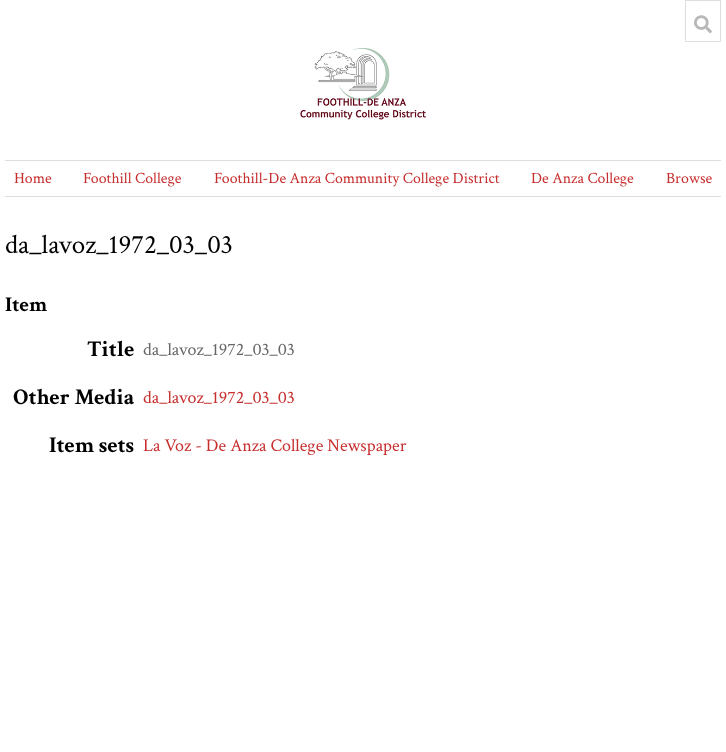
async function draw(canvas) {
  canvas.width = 726;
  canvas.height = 752;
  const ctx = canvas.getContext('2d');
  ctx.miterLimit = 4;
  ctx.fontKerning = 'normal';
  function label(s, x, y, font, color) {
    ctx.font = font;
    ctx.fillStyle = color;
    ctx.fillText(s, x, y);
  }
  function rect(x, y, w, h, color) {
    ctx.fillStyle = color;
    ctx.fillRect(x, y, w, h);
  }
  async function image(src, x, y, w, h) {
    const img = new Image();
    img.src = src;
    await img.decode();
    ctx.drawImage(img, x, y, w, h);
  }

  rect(0, 0, 726, 752, '#fff');
  ctx.strokeStyle = '#dedede';
  ctx.strokeRect(685.5, 0.5, 35, 41);
  await image('assets/img1.png', 694, 15, 18, 19);
  await image('assets/img2.png', 300, 48, 126, 72);
  rect(5, 160, 716, 1, '#dedede');
  rect(5, 196, 716, 1, '#dedede');
  label('Home', 14, 183, '15.75px Crimson Text', '#c72e2e');
  label('Foothill College', 83, 183, '15.75px Crimson Text', '#c72e2e');
  label('Foothill-De Anza Community College District', 214, 183, '15.75px Crimson Text', '#c72e2e');
  label('De Anza College', 531, 183, '15.75px Crimson Text', '#c72e2e');
  label('Browse', 666, 183, '15.75px Crimson Text', '#c72e2e');
  label('da_lavoz_1972_03_03', 5, 253, '27px Crimson Text', '#000');
  label('Item', 5, 311, 'bold 21px Crimson Text', '#000');
  label('Title', 87, 356, 'bold 22.5px Crimson Text', '#000');
  label('da_lavoz_1972_03_03', 143, 355, '18px Crimson Text', '#676767');
  label('Other Media', 13, 404, 'bold 22.5px Crimson Text', '#000');
  label('da_lavoz_1972_03_03', 143, 403, '18px Crimson Text', '#c72e2e');
  label('Item sets', 49, 452, 'bold 22.5px Crimson Text', '#000');
  label('La Voz - De Anza College Newspaper', 143, 451, '18px Crimson Text', '#c72e2e');
}

draw(document.querySelector('canvas'));
